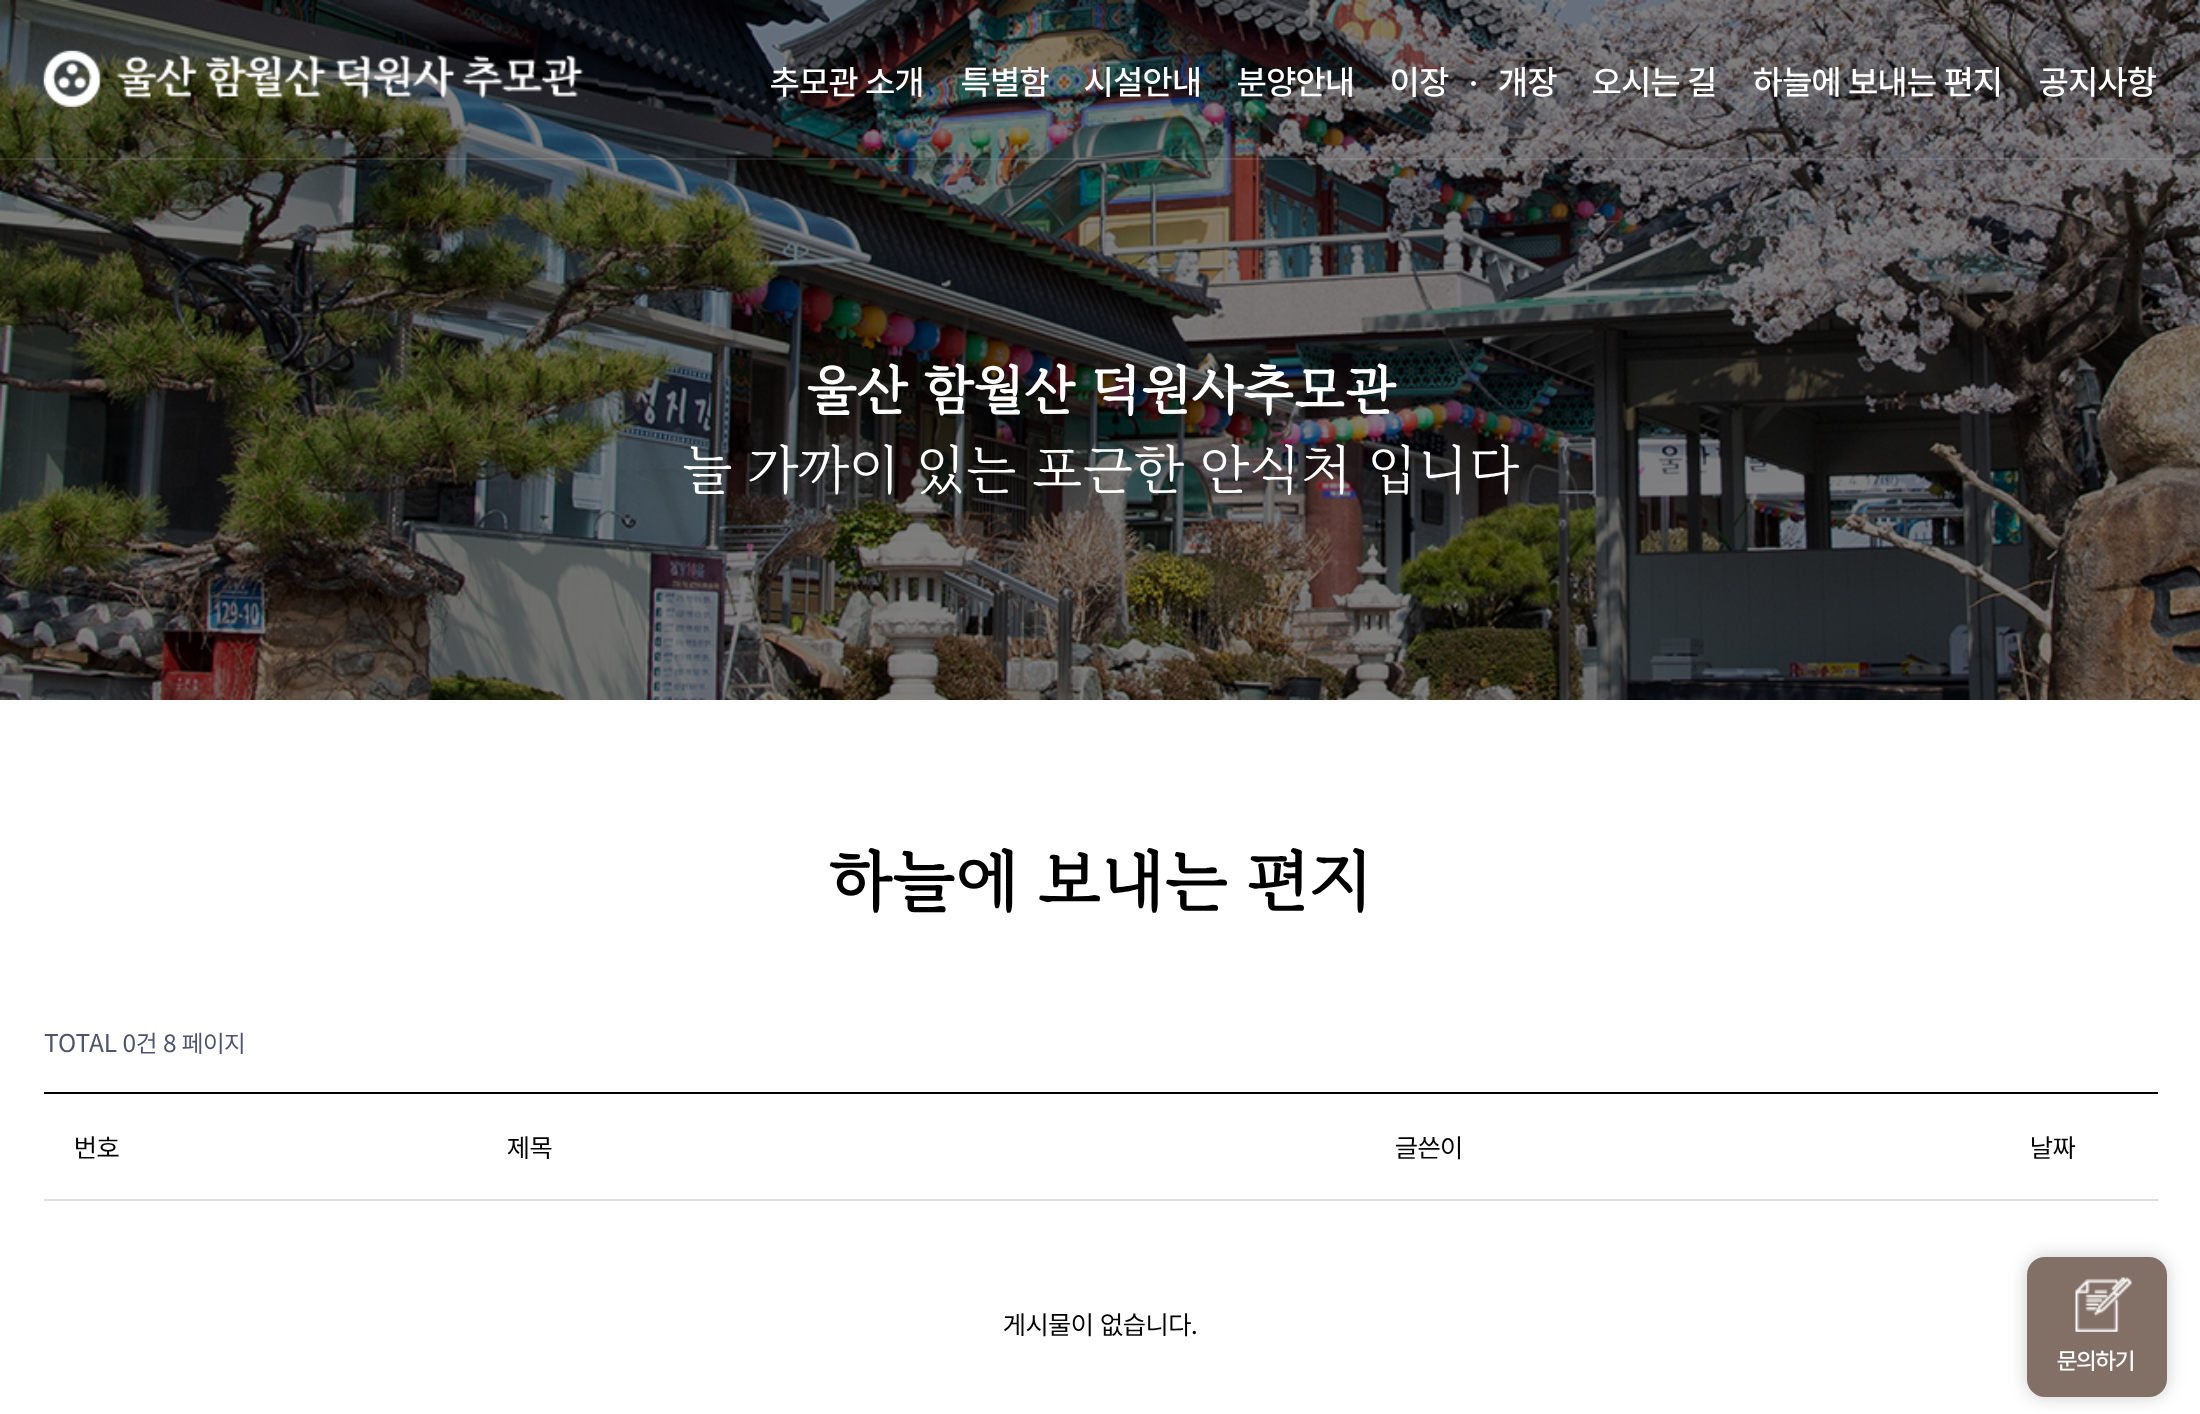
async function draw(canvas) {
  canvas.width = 2200;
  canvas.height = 1414;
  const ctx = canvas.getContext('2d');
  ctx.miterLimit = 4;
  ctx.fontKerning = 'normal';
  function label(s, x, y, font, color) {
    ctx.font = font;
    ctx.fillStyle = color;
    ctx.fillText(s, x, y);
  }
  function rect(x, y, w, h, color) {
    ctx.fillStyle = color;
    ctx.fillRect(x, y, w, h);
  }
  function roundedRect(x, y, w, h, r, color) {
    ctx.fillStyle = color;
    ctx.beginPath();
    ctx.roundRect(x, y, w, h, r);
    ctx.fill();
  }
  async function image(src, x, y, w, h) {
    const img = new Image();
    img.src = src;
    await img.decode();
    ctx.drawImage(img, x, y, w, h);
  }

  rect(0, 0, 2200, 1414, '#fff');
  await image('assets/img2.png', 0, 0, 2200, 700);
  rect(0, 158, 2200, 2, '#ffffff1a');
  await image('assets/img1.png', 43, 50, 541, 57);
  ctx.wordSpacing = '-1px';
  label('추모관 소개', 770, 94, '500 34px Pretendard', '#fff');
  ctx.wordSpacing = '0px';
  label('특별함', 961, 94, '500 34px Pretendard', '#fff');
  label('시설안내', 1084, 94, '500 34px Pretendard', '#fff');
  label('분양안내', 1237, 94, '500 34px Pretendard', '#fff');
  ctx.wordSpacing = '12px';
  label('이장 · 개장', 1390, 94, '500 34px Pretendard', '#fff');
  ctx.wordSpacing = '-1px';
  label('오시는 길', 1592, 94, '500 34px Pretendard', '#fff');
  label('하늘에 보내는 편지', 1753, 94, '500 34px Pretendard', '#fff');
  ctx.wordSpacing = '0px';
  label('공지사항', 2039, 94, '500 34px Pretendard', '#fff');
  label('울산 함월산 덕원사추모관', 806, 406, 'bold 52.5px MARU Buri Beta', '#fff');
  label('늘 가까이 있는 포근한 안식처 입니다', 682, 485, '52.5px MARU Buri Beta', '#fff');
  label('하늘에 보내는 편지', 828, 901, 'bold 65.5px MARU Buri Beta', '#000');
  label('TOTAL 0', 44, 1052, '24.5px Noto Sans SC', '#4e546f');
  label('건', 136, 1052, '24.5px Pretendard', '#4e546f');
  label('8', 163, 1052, '24.5px Noto Sans SC', '#4e546f');
  label('페이지', 182, 1052, '24.5px Pretendard', '#4e546f');
  rect(44, 1092, 2114, 2, '#000');
  label('번호', 74, 1157, '26.25px Pretendard', '#000');
  label('제목', 507, 1157, '26.25px Pretendard', '#000');
  label('글쓴이', 1395, 1157, '26.25px Pretendard', '#000');
  rect(44, 1199, 2114, 2, '#ddd');
  label('날짜', 2030, 1157, '26.25px Pretendard', '#000');
  label('게시물이 없습니다.', 1003, 1334, '26.25px Pretendard', '#000');
  ctx.fillStyle = '#00000033';
  ctx.filter = 'blur(9px)';
  ctx.beginPath();
  ctx.roundRect(2027, 1257, 140, 140, 18);
  ctx.fill();
  ctx.filter = 'none';
  roundedRect(2027, 1257, 140, 140, 18, '#826f66');
  await image('assets/img3.png', 2075, 1277, 57, 55);
  ctx.letterSpacing = '-1px';
  label('문의하기', 2057, 1369, '500 23.5px Pretendard', '#fff');
}

draw(document.querySelector('canvas'));
